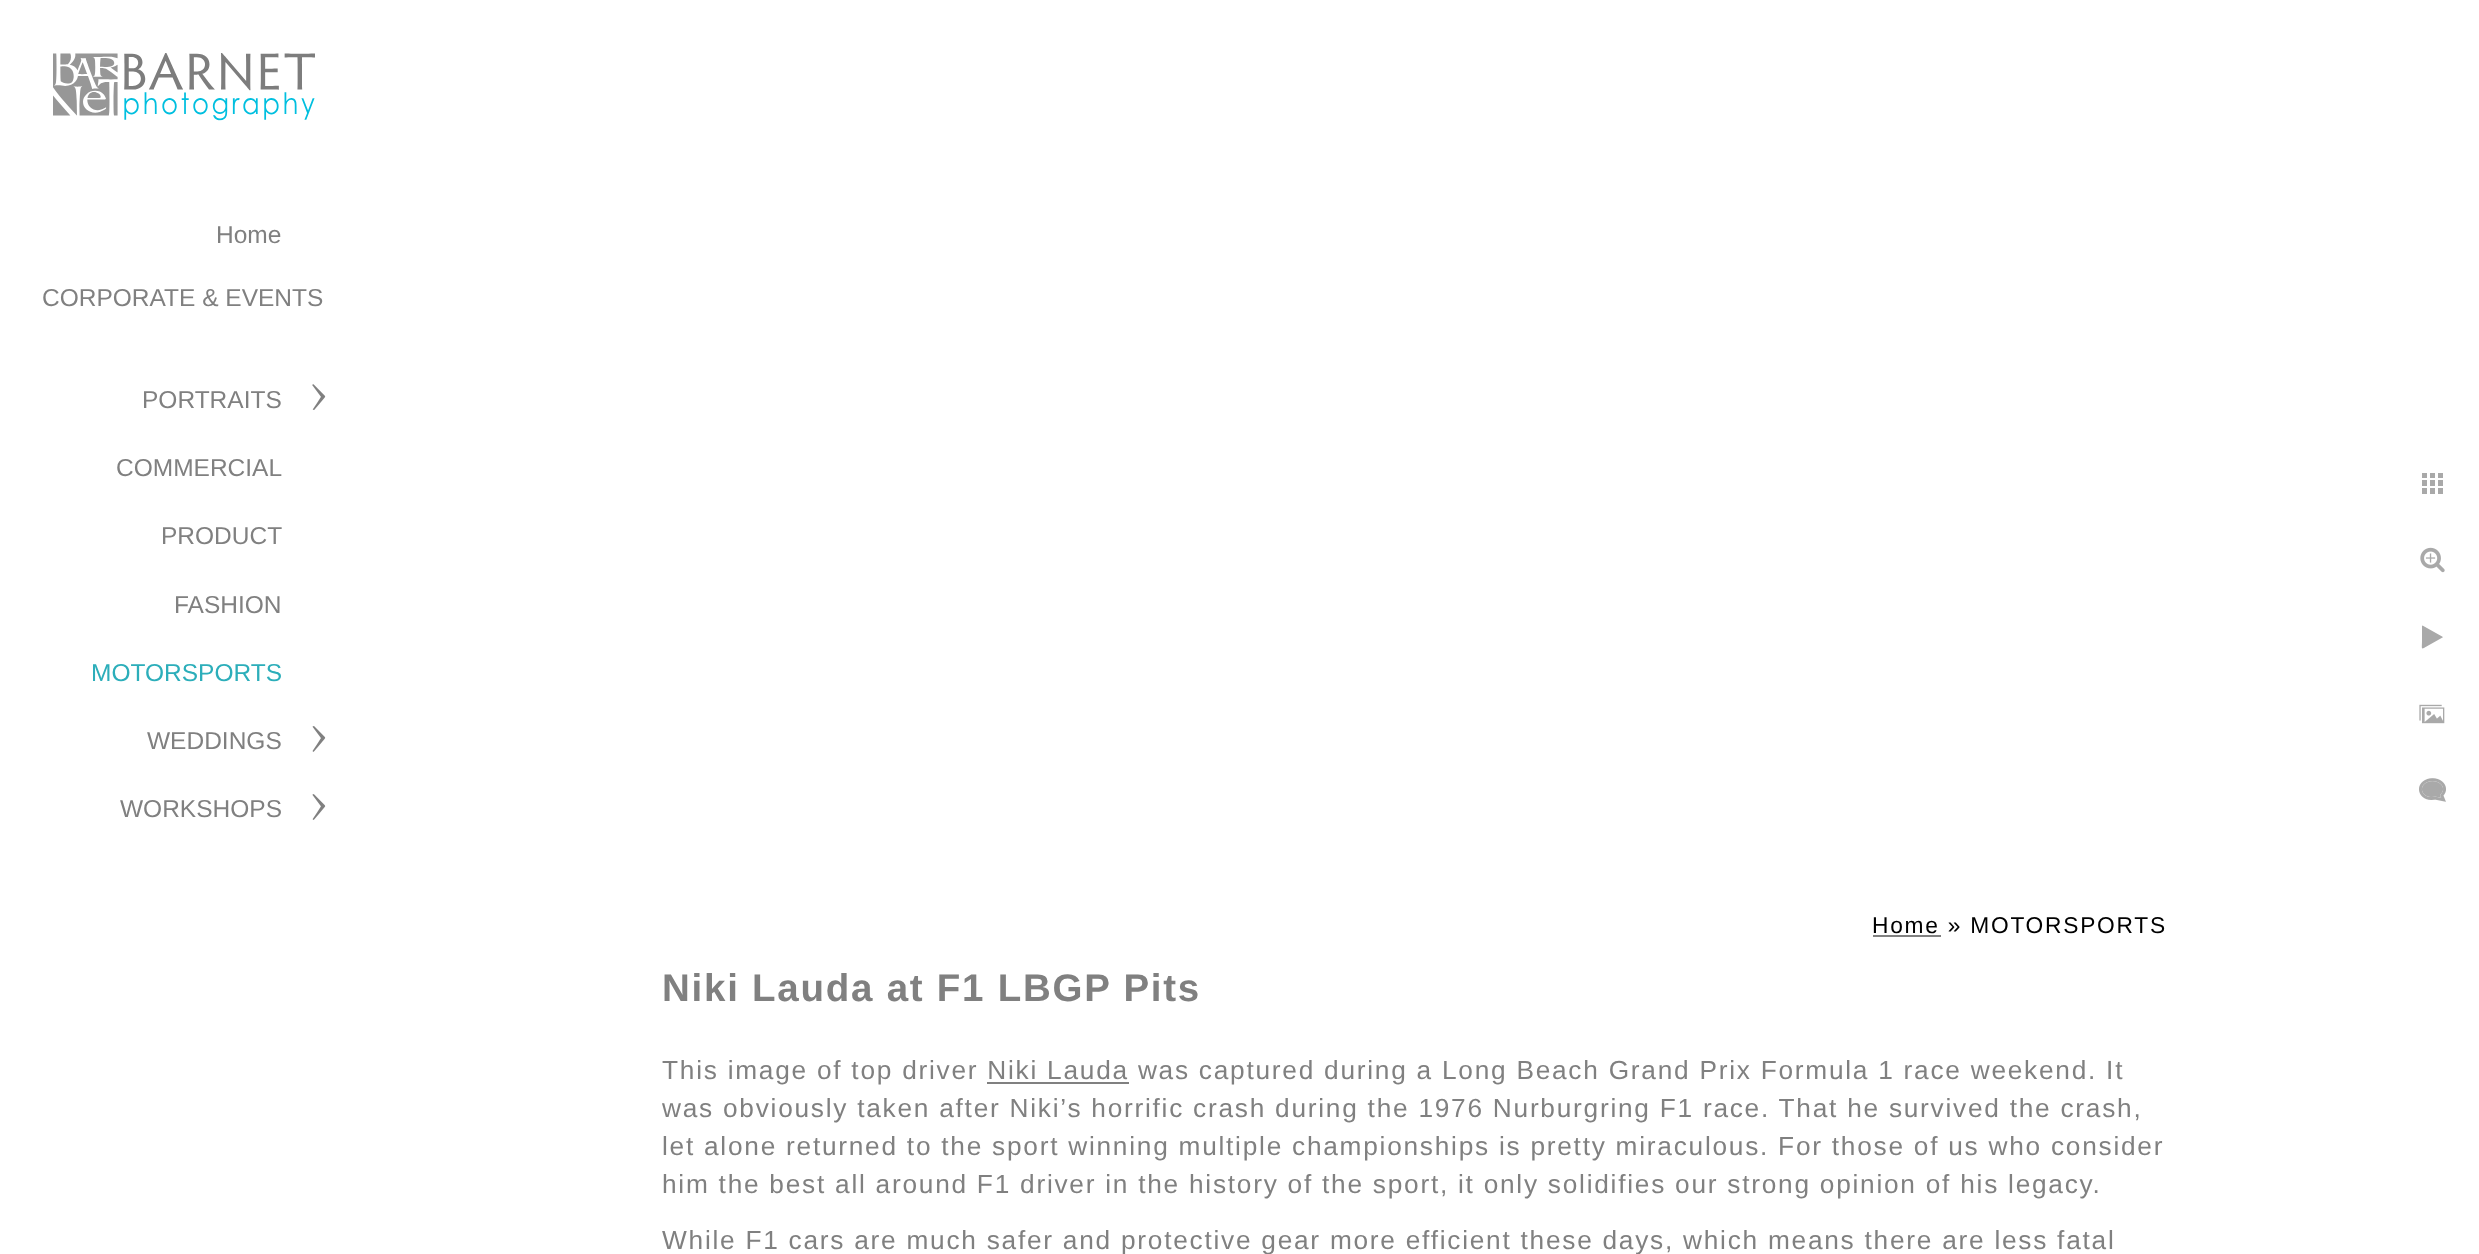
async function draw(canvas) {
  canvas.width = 2479;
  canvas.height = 1254;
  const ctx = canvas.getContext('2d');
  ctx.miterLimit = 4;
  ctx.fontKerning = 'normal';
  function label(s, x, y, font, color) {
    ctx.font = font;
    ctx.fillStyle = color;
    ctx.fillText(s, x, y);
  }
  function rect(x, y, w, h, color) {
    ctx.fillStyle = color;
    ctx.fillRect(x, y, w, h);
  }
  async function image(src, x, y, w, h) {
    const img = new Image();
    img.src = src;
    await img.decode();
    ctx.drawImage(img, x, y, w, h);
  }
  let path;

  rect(0, 0, 2479, 1254, '#fff');
  await image('assets/img1.png', 53, 53, 262, 68);
  label('Home', 216, 243, '24.5px Liberation Sans', '#808080');
  label('CORPORATE & EVENTS', 42, 306, '24.5px Liberation Sans', '#808080');
  label('PORTRAITS', 142, 408, '24.5px Liberation Sans', '#808080');
  await image('assets/img2.png', 312, 384, 14, 26);
  label('COMMERCIAL', 116, 476, '24.5px Liberation Sans', '#808080');
  label('PRODUCT', 161, 544, '24.5px Liberation Sans', '#808080');
  label('FASHION', 174, 613, '24.5px Liberation Sans', '#808080');
  label('MOTORSPORTS', 91, 681, '24.5px Liberation Sans', '#2caeba');
  label('WEDDINGS', 147, 749, '24.5px Liberation Sans', '#808080');
  await image('assets/img3.png', 312, 726, 14, 26);
  label('WORKSHOPS', 120, 817, '24.5px Liberation Sans', '#808080');
  await image('assets/img4.png', 312, 794, 14, 26);
  await image('assets/img5.png', 2422, 473, 21, 21);
  await image('assets/img6.png', 2420, 547, 25, 26);
  ctx.fillStyle = '#a9a9a9';
  path = new Path2D('M2442.5 637.5L2426.5 646.5C2420.5 650 2422 649 2422 640.5V626L2422.5 625.5L2443 637Z');
  ctx.fill(path);
  await image('assets/img7.png', 2419, 704, 26, 20);
  await image('assets/img8.png', 2419, 778, 27, 24);
  ctx.letterSpacing = '1.75px';
  label('Home » MOTORSPORTS', 1872, 933, '22.75px Liberation Sans', '#000');
  rect(1873, 935, 68, 2, '#808080');
  label('Niki Lauda at F1 LBGP Pits', 662, 1001, 'bold 38.5px Liberation Sans', '#808080');
  label('This image of top driver Niki Lauda was captured during a Long Beach Grand Prix Formula 1 race weekend. It', 662, 1079, '26.25px Liberation Sans', '#808080');
  rect(987, 1082, 142, 2, '#808080');
  label('was obviously taken after Niki’s horrific crash during the 1976 Nurburgring F1 race. That he survived the crash,', 662, 1117, '26.25px Liberation Sans', '#808080');
  label('let alone returned to the sport winning multiple championships is pretty miraculous. For those of us who consider', 662, 1155, '26.25px Liberation Sans', '#808080');
  label('him the best all around F1 driver in the history of the sport, it only solidifies our strong opinion of his legacy.', 662, 1193, '26.25px Liberation Sans', '#808080');
  label('While F1 cars are much safer and protective gear more efficient these days, which means there are less fatal', 662, 1249, '26.25px Liberation Sans', '#808080');
}

draw(document.querySelector('canvas'));
